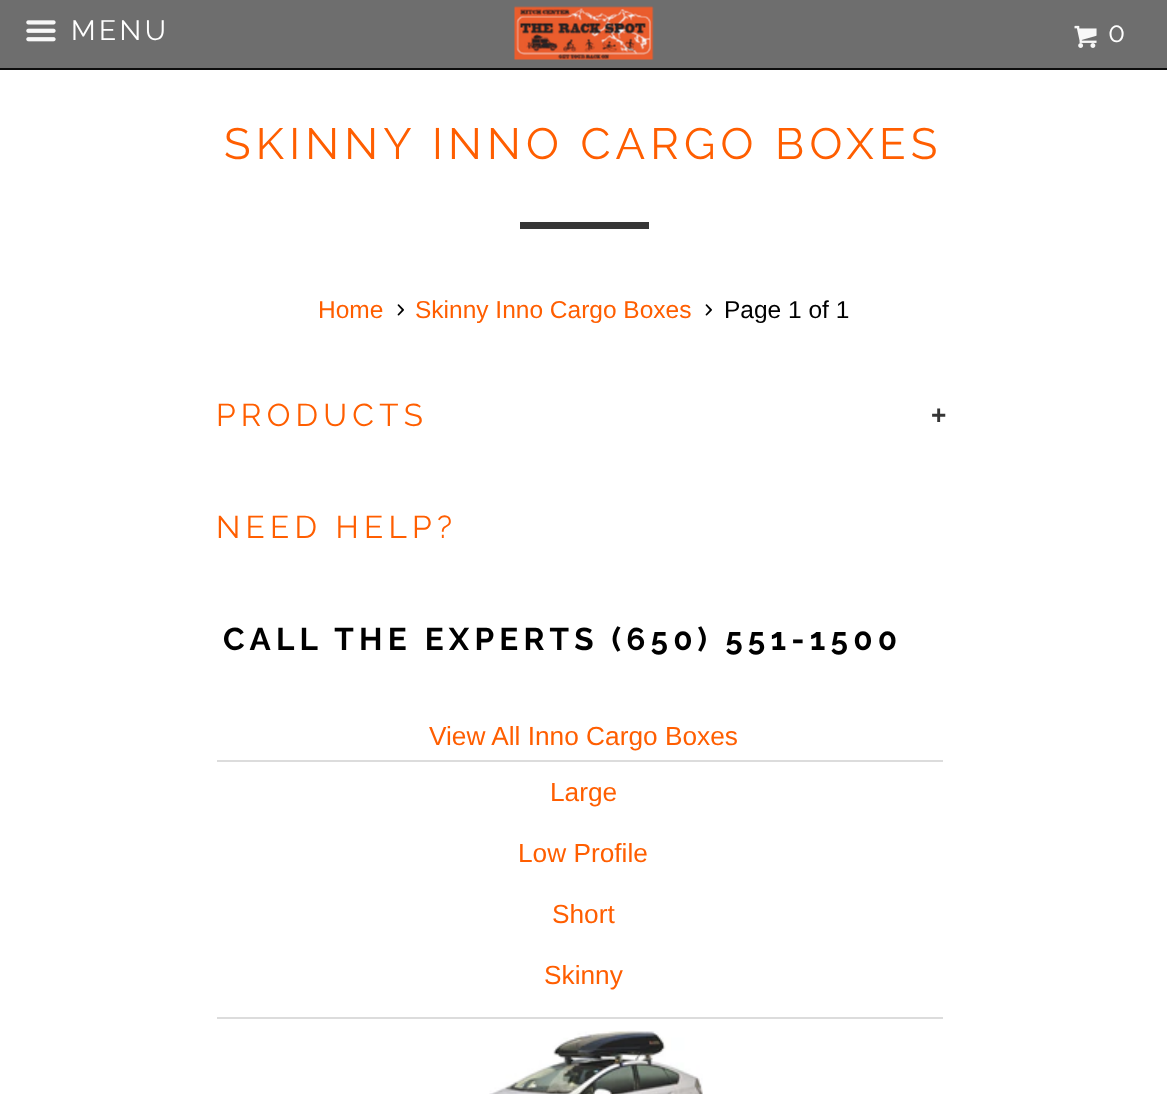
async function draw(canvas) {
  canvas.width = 1167;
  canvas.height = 1094;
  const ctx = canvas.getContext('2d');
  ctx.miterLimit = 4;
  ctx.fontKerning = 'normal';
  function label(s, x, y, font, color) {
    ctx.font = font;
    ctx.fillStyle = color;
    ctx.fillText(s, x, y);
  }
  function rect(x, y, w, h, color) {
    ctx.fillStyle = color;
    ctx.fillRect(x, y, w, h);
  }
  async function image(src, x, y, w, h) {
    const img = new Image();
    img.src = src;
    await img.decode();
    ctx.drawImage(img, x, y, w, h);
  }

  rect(0, 0, 1167, 1094, '#fff');
  rect(0, 0, 1167, 68, '#6e6e6e');
  rect(0, 68, 1167, 2, '#0d0d0d');
  await image('assets/img1.png', 26, 20, 30, 22);
  ctx.letterSpacing = '3.5px';
  label('MENU', 71, 40, '28px Raleway', '#fff');
  await image('assets/img2.png', 514, 6, 140, 54);
  await image('assets/img3.png', 1074, 25, 23, 23);
  label('0', 1108, 42, '28px Raleway', '#fff');
  ctx.letterSpacing = '5.25px';
  label('SKINNY INNO CARGO BOXES', 224, 159, '43.75px Raleway', '#ff5e00');
  rect(520, 222, 129, 7, '#363636');
  ctx.letterSpacing = '0px';
  label('Home', 318, 318, '24.5px Liberation Sans', '#ff5e00');
  await image('assets/img4.png', 397, 304, 7, 12);
  label('Skinny Inno Cargo Boxes', 415, 318, '24.5px Liberation Sans', '#ff5e00');
  await image('assets/img4.png', 705, 304, 7, 12);
  label('Page 1 of 1', 724, 318, '24.5px Liberation Sans', '#000');
  ctx.letterSpacing = '5.25px';
  label('PRODUCTS', 216, 426, '31.5px Raleway', '#ff5e00');
  label('+', 931, 424, 'bold 26.25px Liberation Sans', '#363636');
  label('NEED HELP?', 216, 538, '31.5px Raleway', '#ff5e00');
  label('CALL THE EXPERTS (650) 551-1500', 223, 650, 'bold 31.5px Raleway', '#000');
  ctx.letterSpacing = '0px';
  label('View All Inno Cargo Boxes', 429, 745, '26.25px Liberation Sans', '#ff5e00');
  rect(217, 760, 726, 2, '#dcdcdc');
  rect(217, 1017, 726, 2, '#dcdcdc');
  label('Large', 550, 801, '26.25px Liberation Sans', '#ff5e00');
  label('Low Profile', 518, 862, '26.25px Liberation Sans', '#ff5e00');
  label('Short', 552, 923, '26.25px Liberation Sans', '#ff5e00');
  label('Skinny', 544, 984, '26.25px Liberation Sans', '#ff5e00');
  await image('assets/img5.png', 489, 1030, 214, 64);
}

draw(document.querySelector('canvas'));
